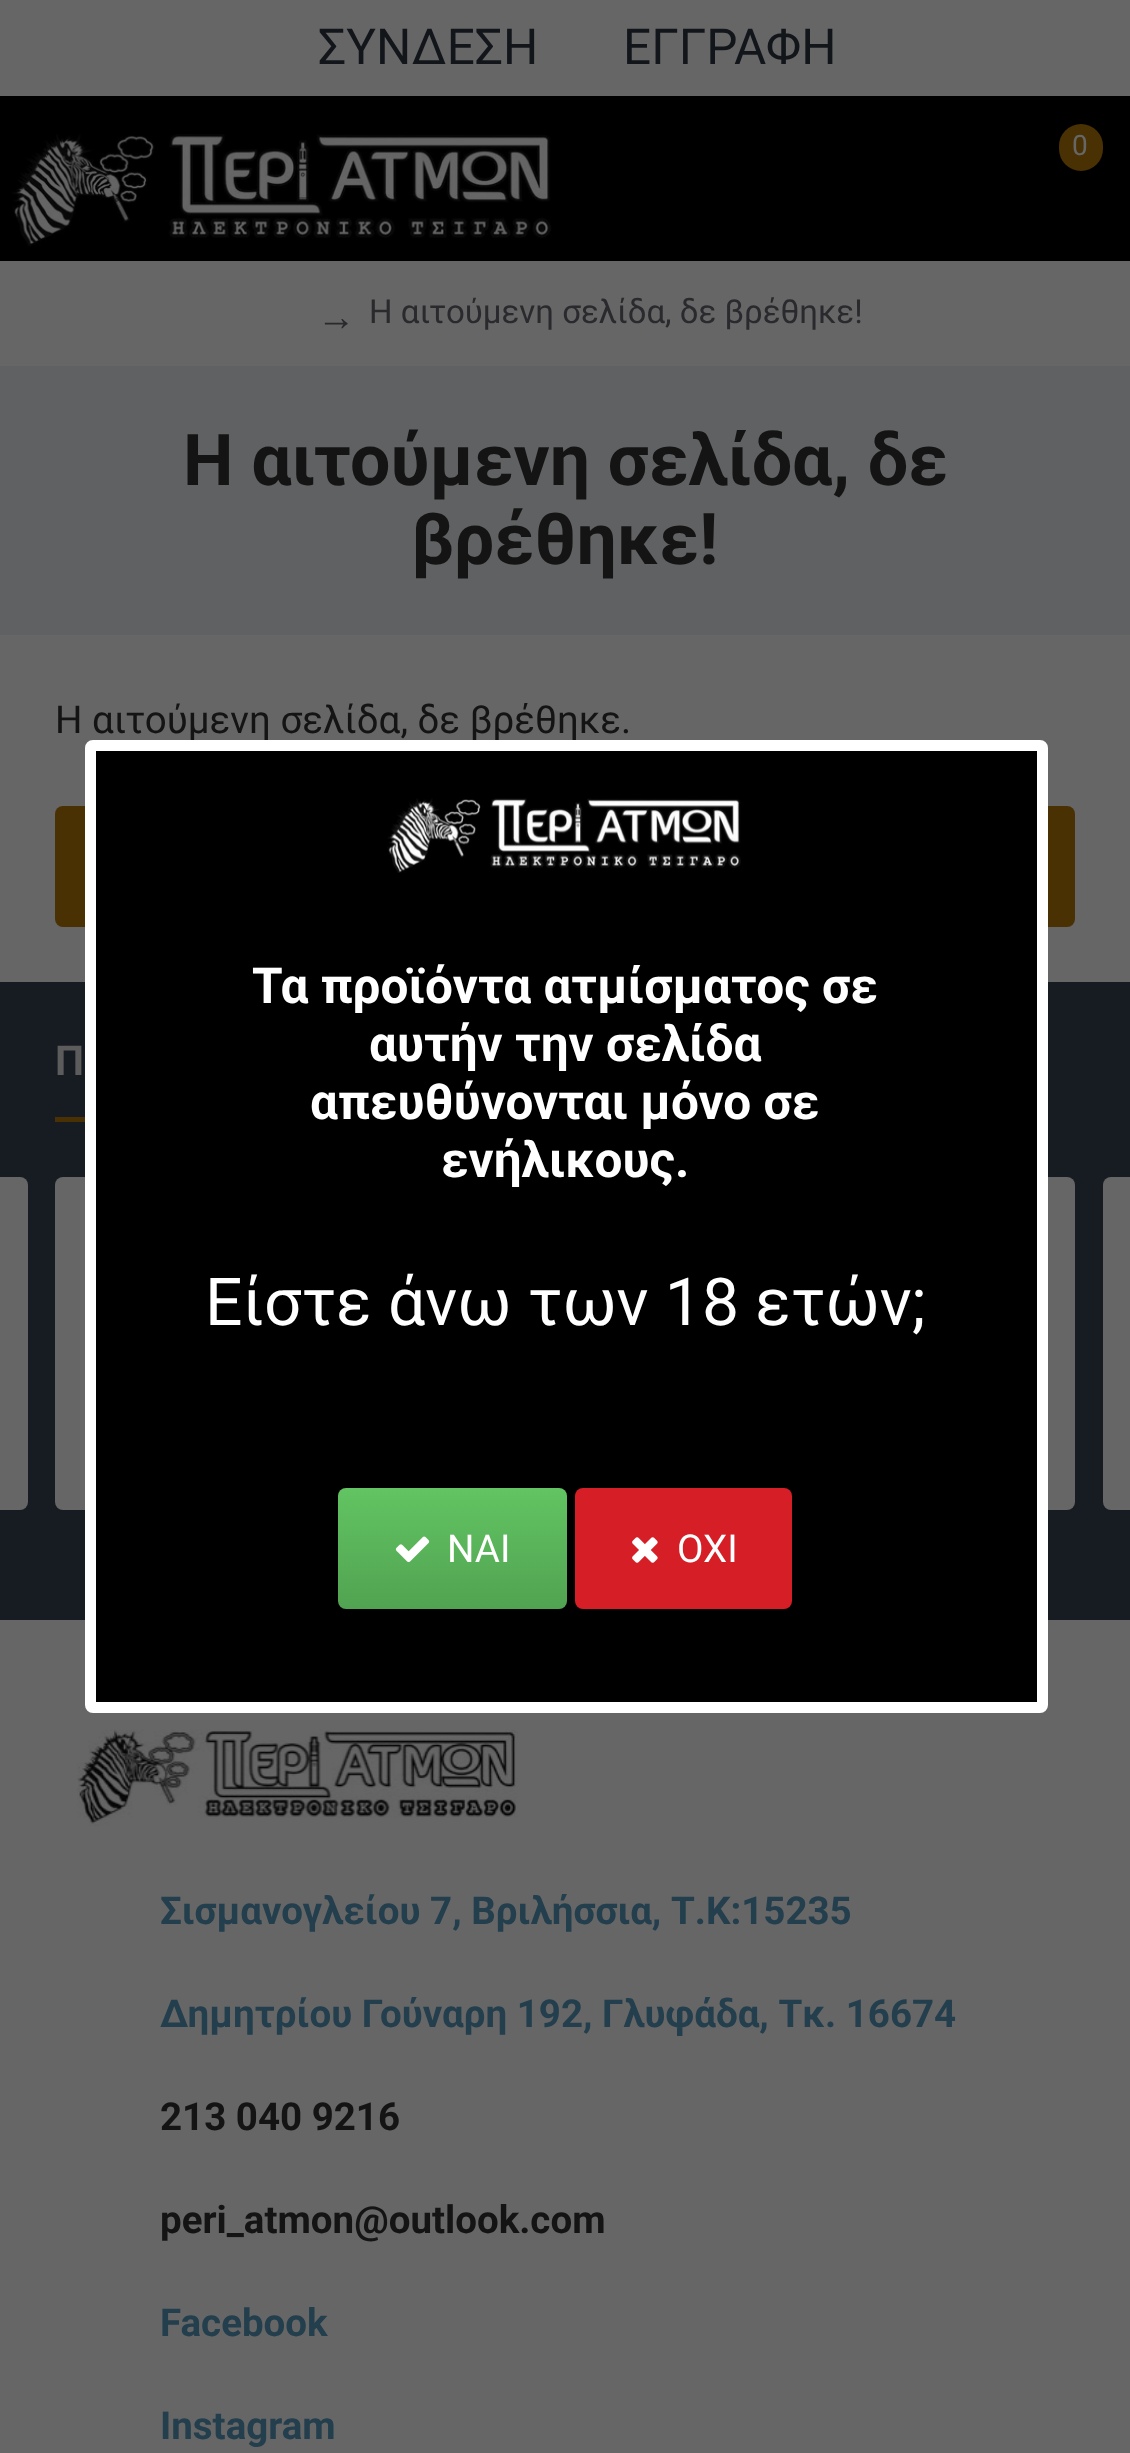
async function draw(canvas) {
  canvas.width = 1130;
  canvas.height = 2453;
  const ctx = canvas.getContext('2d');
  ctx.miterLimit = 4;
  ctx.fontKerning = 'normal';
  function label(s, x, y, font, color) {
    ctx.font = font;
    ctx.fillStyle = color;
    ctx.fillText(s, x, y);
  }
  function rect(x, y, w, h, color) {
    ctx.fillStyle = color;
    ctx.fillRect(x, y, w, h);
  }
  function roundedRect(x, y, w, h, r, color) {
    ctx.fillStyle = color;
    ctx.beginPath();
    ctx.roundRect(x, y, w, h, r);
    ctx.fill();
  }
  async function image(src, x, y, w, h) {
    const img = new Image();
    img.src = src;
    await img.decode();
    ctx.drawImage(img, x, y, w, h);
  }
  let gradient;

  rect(0, 0, 1130, 2453, '#666');
  label('ΣΥΝΔΕΣΗ', 318, 64, '49.5px Roboto', '#12161a');
  label('ΕΓΓΡΑΦΗ', 623, 64, '49.5px Roboto', '#12161a');
  rect(0, 96, 1130, 165, '#000');
  await image('assets/img1.png', 11, 134, 541, 113);
  roundedRect(1059, 124, 44, 47, 22, '#4a3103');
  label('0', 1072, 155, '28px Roboto', '#666');
  label('→', 317, 330, '38.5px Liberation Serif', '#2a2a2e');
  label('Η αιτούμενη σελίδα, δε βρέθηκε!', 369, 323, '33px Roboto', '#2a2a2e');
  rect(0, 366, 1130, 269, '#606162');
  label('Η αιτούμενη σελίδα, δε', 183, 485, 'bold 71.5px Roboto', '#141414');
  label('βρέθηκε!', 411, 564, 'bold 71.5px Roboto', '#141414');
  label('Η αιτούμενη σελίδα, δε βρέθηκε.', 55, 733, '38.5px Roboto', '#141414');
  roundedRect(55, 806, 1020, 121, 8, '#4a3103');
  rect(0, 982, 1130, 638, '#171c22');
  rect(55, 1117, 30, 5, '#4a3103');
  label('Π', 55, 1075, 'bold 41px Roboto', '#5c5c5c');
  ctx.fillStyle = '#666';
  ctx.beginPath();
  ctx.roundRect(0, 1177, 28, 333, [0, 8, 8, 0]);
  ctx.fill();
  roundedRect(55, 1177, 1020, 333, 8, '#666');
  ctx.beginPath();
  ctx.roundRect(1103, 1177, 27, 333, [8, 0, 0, 8]);
  ctx.fill();
  await image('assets/img2.png', 77, 1729, 441, 97);
  label('Σισμανογλείου 7, Βριλήσσια, Τ.Κ:15235', 160, 1924, 'bold 38.5px Roboto', '#233e4d');
  label('Δημητρίου Γούναρη 192, Γλυφάδα, Τκ. 16674', 160, 2027, 'bold 38.5px Roboto', '#233e4d');
  label('213 040 9216', 160, 2130, 'bold 38.5px Roboto', '#141414');
  label('peri_atmon@outlook.com', 160, 2233, 'bold 38.5px Roboto', '#141414');
  label('Facebook', 160, 2336, 'bold 38.5px Roboto', '#233e4d');
  label('Instagram', 160, 2439, 'bold 38.5px Roboto', '#233e4d');
  ctx.fillStyle = '#000';
  ctx.beginPath();
  ctx.roundRect(90.5, 745.5, 952, 962, 2.5);
  ctx.fill();
  ctx.strokeStyle = '#fff';
  ctx.lineWidth = 11;
  ctx.stroke();
  await image('assets/img3.png', 387, 798, 354, 75);
  label('Τα προϊόντα ατμίσματος σε', 252, 1003, 'bold 49.5px Roboto', '#fff');
  label('αυτήν την σελίδα', 369, 1061, 'bold 49.5px Roboto', '#fff');
  label('απευθύνονται μόνο σε', 310, 1119, 'bold 49.5px Roboto', '#fff');
  label('ενήλικους.', 441, 1177, 'bold 49.5px Roboto', '#fff');
  label('Είστε άνω των 18 ετών;', 205, 1325, '66px Roboto', '#fff');
  gradient = ctx.createLinearGradient(452, 1488, 452, 1609);
  gradient.addColorStop(0, '#62c462');
  gradient.addColorStop(1, '#51a351');
  ctx.fillStyle = gradient;
  ctx.beginPath();
  ctx.roundRect(338, 1488, 229, 121, 8);
  ctx.fill();
  await image('assets/img4.png', 395, 1536, 35, 27);
  label('NAI', 447, 1562, '38.5px Roboto', '#fff');
  roundedRect(575, 1488, 217, 121, 8, '#d51e26');
  await image('assets/img5.png', 632, 1537, 26, 26);
  label('OXI', 677, 1562, '38.5px Roboto', '#fff');
}

draw(document.querySelector('canvas'));
